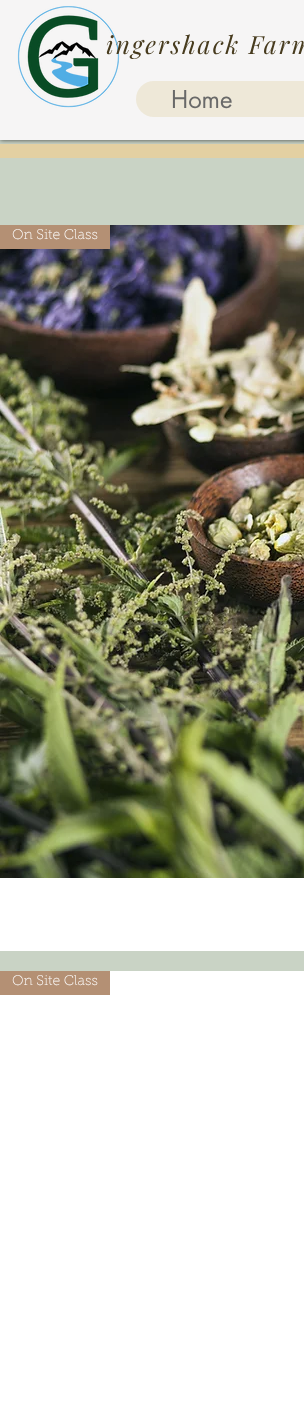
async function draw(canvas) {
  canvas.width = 304;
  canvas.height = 1418;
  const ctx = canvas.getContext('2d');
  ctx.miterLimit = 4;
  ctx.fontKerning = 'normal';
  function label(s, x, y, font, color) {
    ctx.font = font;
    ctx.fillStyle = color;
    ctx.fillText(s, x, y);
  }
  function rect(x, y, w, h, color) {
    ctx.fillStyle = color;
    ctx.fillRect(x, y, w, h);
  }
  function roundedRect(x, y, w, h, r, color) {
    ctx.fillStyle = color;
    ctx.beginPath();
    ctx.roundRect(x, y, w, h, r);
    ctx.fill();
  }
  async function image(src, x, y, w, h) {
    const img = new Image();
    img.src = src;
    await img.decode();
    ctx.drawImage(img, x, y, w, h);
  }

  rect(0, 0, 304, 1418, '#c9d3c5');
  ctx.fillStyle = '#000000b3';
  ctx.filter = 'blur(2.5px)';
  ctx.beginPath();
  ctx.rect(0, 0, 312, 140);
  ctx.fill();
  ctx.filter = 'none';
  rect(0, 0, 304, 140, '#f6f5f5');
  await image('assets/img1.png', 17, 6, 103, 102);
  ctx.letterSpacing = '2px';
  label('ingershack Farm', 106, 54, 'italic 25px Playfair Display', '#473b1e');
  roundedRect(136, 81, 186, 36, 18, '#eee8d8');
  ctx.letterSpacing = '0px';
  label('Home', 171, 108, '24px futura', '#696969');
  rect(0, 144, 304, 14, '#e3d0a2');
  rect(0, 878, 304, 73, '#fff');
  await image('assets/img2.png', 0, 225, 304, 653);
  rect(0, 225, 110, 24, '#b49074');
  label('On Site Class', 12, 239, '100 14px "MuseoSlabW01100"', '#fff');
  rect(0, 971, 304, 447, '#fff');
  rect(0, 971, 110, 24, '#b49074');
  label('On Site Class', 12, 985, '100 14px "MuseoSlabW01100"', '#fff');
}

draw(document.querySelector('canvas'));
